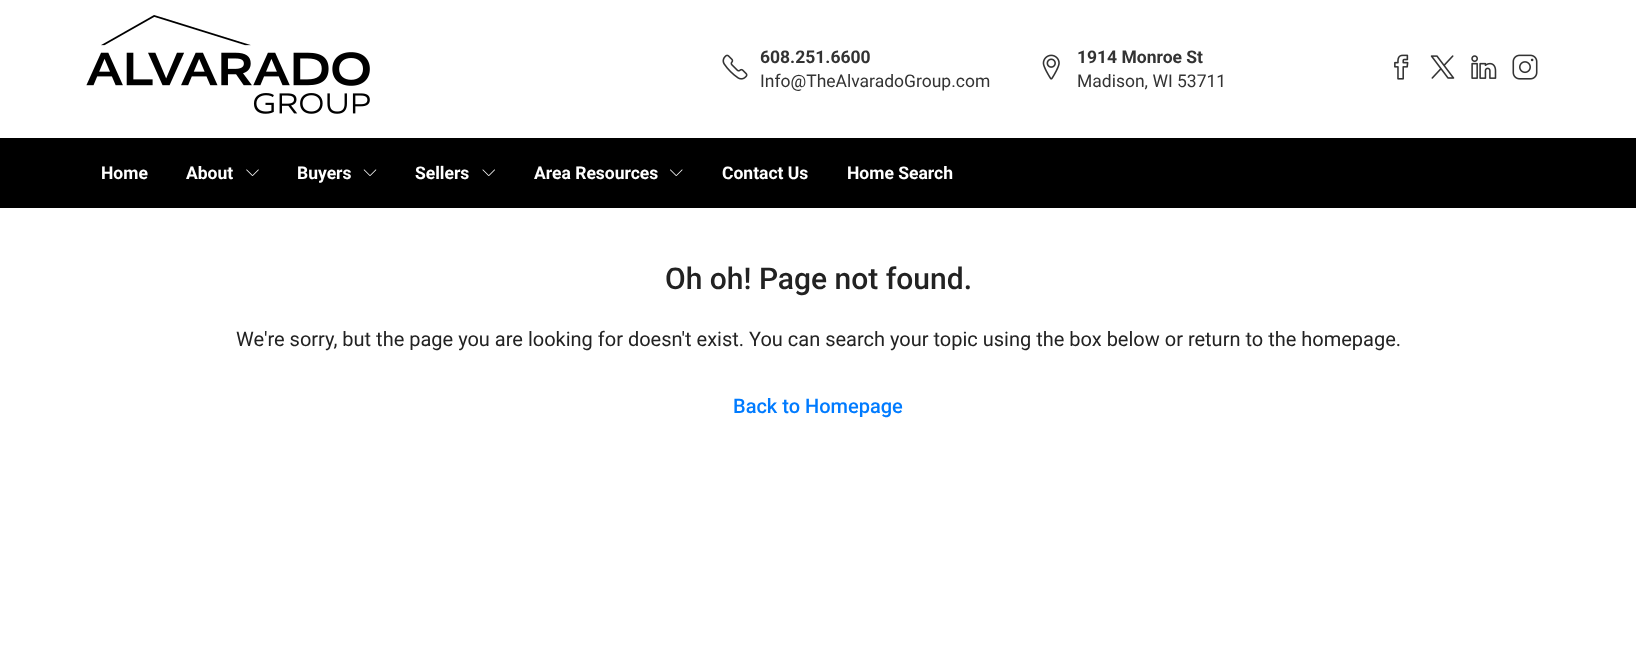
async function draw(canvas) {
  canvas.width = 1636;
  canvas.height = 664;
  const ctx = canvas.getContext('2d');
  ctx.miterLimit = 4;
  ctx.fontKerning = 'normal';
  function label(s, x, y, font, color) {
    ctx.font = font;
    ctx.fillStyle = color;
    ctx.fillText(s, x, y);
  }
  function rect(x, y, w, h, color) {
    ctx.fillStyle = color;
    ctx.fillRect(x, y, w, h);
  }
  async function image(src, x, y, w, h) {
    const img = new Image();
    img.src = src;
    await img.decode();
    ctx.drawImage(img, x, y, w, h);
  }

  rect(0, 0, 1636, 664, '#fff');
  await image('assets/img1.png', 86, 15, 284, 99);
  await image('assets/img2.png', 722, 54, 26, 26);
  label('608.251.6600', 760, 63, 'bold 17.5px Roboto', '#333');
  label('Info@TheAlvaradoGroup.com', 760, 87, '17.5px Roboto', '#333');
  await image('assets/img3.png', 1042, 54, 18, 26);
  label('1914 Monroe St', 1077, 63, 'bold 17.5px Roboto', '#333');
  label('Madison, WI 53711', 1077, 87, '17.5px Roboto', '#333');
  await image('assets/img4.png', 1394, 54, 15, 26);
  await image('assets/img5.png', 1430, 55, 25, 24);
  await image('assets/img6.png', 1471, 55, 26, 24);
  await image('assets/img7.png', 1512, 54, 26, 26);
  rect(0, 138, 1636, 70, '#000');
  label('Home', 101, 179, 'bold 17.5px Roboto', '#fff');
  label('About', 186, 179, 'bold 17.5px Roboto', '#fff');
  await image('assets/img8.png', 246, 169, 13, 7);
  label('Buyers', 297, 179, 'bold 17.5px Roboto', '#fff');
  await image('assets/img9.png', 363, 169, 14, 7);
  label('Sellers', 415, 179, 'bold 17.5px Roboto', '#fff');
  await image('assets/img10.png', 482, 169, 13, 7);
  label('Area Resources', 534, 179, 'bold 17.5px Roboto', '#fff');
  await image('assets/img11.png', 670, 169, 13, 7);
  label('Contact Us', 722, 179, 'bold 17.5px Roboto', '#fff');
  label('Home Search', 847, 179, 'bold 17.5px Roboto', '#fff');
  label('Oh oh! Page not found.', 665, 289, '500 30px Roboto', '#222');
  label('We\'re sorry, but the page you are looking for doesn\'t exist. You can search your topic using the box below or return to the homepage.', 236, 346, '20px Roboto', '#222');
  label('Back to Homepage', 733, 413, '500 20px Roboto', '#007bff');
}

draw(document.querySelector('canvas'));
